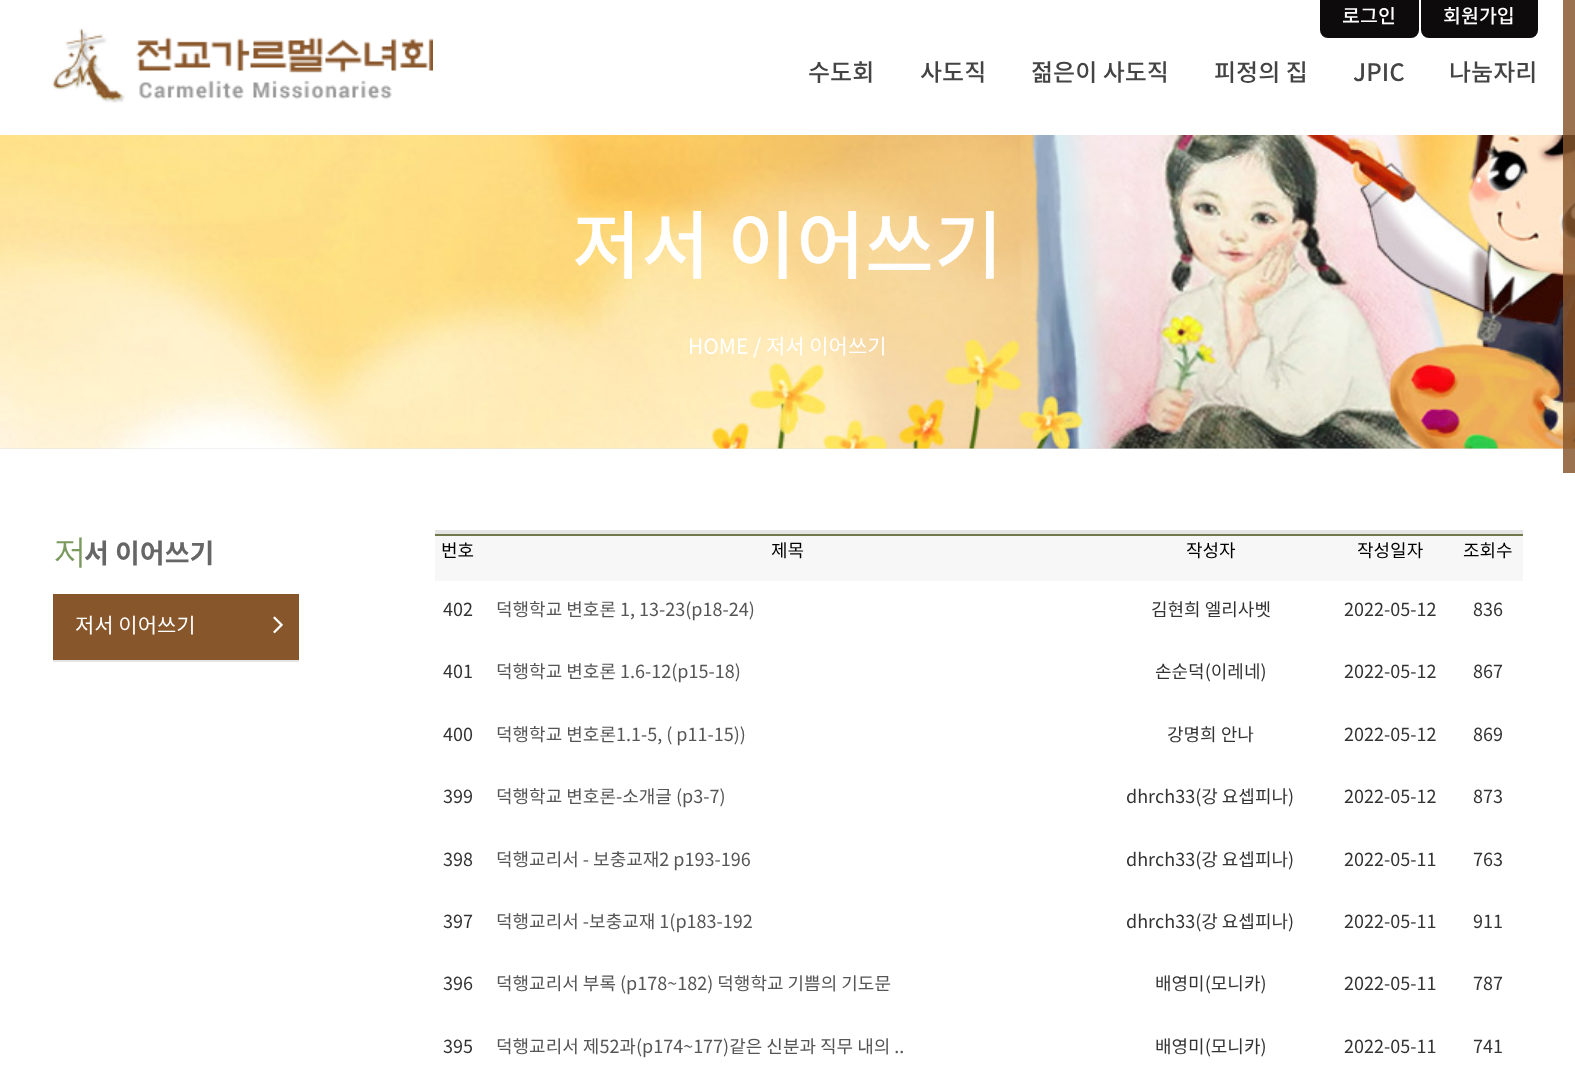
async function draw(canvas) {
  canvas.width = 1575;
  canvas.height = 1066;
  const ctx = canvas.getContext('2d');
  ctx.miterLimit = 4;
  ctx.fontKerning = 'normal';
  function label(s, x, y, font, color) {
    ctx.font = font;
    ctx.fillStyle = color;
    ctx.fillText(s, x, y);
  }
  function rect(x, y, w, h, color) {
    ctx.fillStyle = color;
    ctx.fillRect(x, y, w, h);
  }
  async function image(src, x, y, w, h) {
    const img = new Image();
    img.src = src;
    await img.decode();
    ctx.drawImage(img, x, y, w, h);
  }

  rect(0, 0, 1575, 1066, '#fff');
  await image('assets/img1.png', 52, 28, 381, 75);
  ctx.fillStyle = '#0d0b0b';
  ctx.beginPath();
  ctx.roundRect(1320, 0, 99, 38, [0, 0, 8, 8]);
  ctx.fill();
  label('로그인', 1342, 23, '500 19.5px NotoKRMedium', '#fff');
  ctx.fillStyle = '#0d0b0b';
  ctx.beginPath();
  ctx.roundRect(1421, 0, 117, 38, [0, 0, 8, 8]);
  ctx.fill();
  label('회원가입', 1443, 23, '500 19.5px NotoKRMedium', '#fff');
  label('수도회', 808, 81, '500 24px NotoKRMedium', '#444');
  label('사도직', 920, 81, '500 24px NotoKRMedium', '#444');
  label('젊은이 사도직', 1031, 81, '500 24px NotoKRMedium', '#444');
  label('피정의 집', 1214, 81, '500 24px NotoKRMedium', '#444');
  label('JPIC', 1353, 81, '500 24px NotoKRMedium', '#444');
  label('나눔자리', 1449, 81, '500 24px NotoKRMedium', '#444');
  rect(0, 448, 1575, 1, '#e5e5e5');
  await image('assets/img2.png', 0, 135, 1575, 314);
  rect(1563, 0, 12, 473, '#87562bd4');
  label('저서 이어쓰기', 572, 273, '500 75px NotoKRMedium', '#fff');
  label('HOME / 저서 이어쓰기', 688, 354, '21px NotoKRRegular', '#fff');
  label('저', 53, 563, '100 34px Noto Sans', '#7b9a5f');
  label('서 이어쓰기', 84, 563, 'bold 27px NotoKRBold', '#666');
  rect(53, 594, 246, 66, '#87562b');
  rect(53, 660, 246, 2, '#e5e5e5');
  label('저서 이어쓰기', 75, 633, '21px NotoKRRegular', '#fff');
  await image('assets/img3.png', 273, 616, 10, 18);
  rect(435, 530, 1088, 4, '#e5e5e5');
  rect(435, 534, 1088, 2, '#71784e');
  rect(435, 536, 1088, 45, '#f7f7f7');
  label('번호', 441, 557, '18px NotoKRRegular', '#000');
  label('제목', 771, 557, '18px NotoKRRegular', '#000');
  label('작성자', 1186, 557, '18px NotoKRRegular', '#000');
  label('작성일자', 1357, 557, '18px NotoKRRegular', '#000');
  label('조회수', 1463, 557, '18px NotoKRRegular', '#000');
  label('402', 443, 616, '18px NotoKRRegular', '#333');
  label('덕행학교 변호론 1, 13-23(p18-24)', 496, 616, '18px NotoKRRegular', '#555');
  label('김현희 엘리사벳', 1151, 616, '18px NotoKRRegular', '#333');
  label('2022-05-12', 1344, 616, '18px NotoKRRegular', '#333');
  label('836', 1473, 616, '18px NotoKRRegular', '#333');
  label('401', 443, 678, '18px NotoKRRegular', '#333');
  label('덕행학교 변호론 1.6-12(p15-18)', 496, 678, '18px NotoKRRegular', '#555');
  label('손순덕(이레네)', 1155, 678, '18px NotoKRRegular', '#333');
  label('2022-05-12', 1344, 678, '18px NotoKRRegular', '#333');
  label('867', 1473, 678, '18px NotoKRRegular', '#333');
  label('400', 443, 741, '18px NotoKRRegular', '#333');
  label('덕행학교 변호론1.1-5, ( p11-15))', 496, 741, '18px NotoKRRegular', '#555');
  label('강명희 안나', 1167, 741, '18px NotoKRRegular', '#333');
  label('2022-05-12', 1344, 741, '18px NotoKRRegular', '#333');
  label('869', 1473, 741, '18px NotoKRRegular', '#333');
  label('399', 443, 803, '18px NotoKRRegular', '#333');
  label('덕행학교 변호론-소개글 (p3-7)', 496, 803, '18px NotoKRRegular', '#555');
  label('dhrch33(강 요셉피나)', 1126, 803, '18px NotoKRRegular', '#333');
  label('2022-05-12', 1344, 803, '18px NotoKRRegular', '#333');
  label('873', 1473, 803, '18px NotoKRRegular', '#333');
  label('398', 443, 866, '18px NotoKRRegular', '#333');
  label('덕행교리서 - 보충교재2 p193-196', 496, 866, '18px NotoKRRegular', '#555');
  label('dhrch33(강 요셉피나)', 1126, 866, '18px NotoKRRegular', '#333');
  label('2022-05-11', 1344, 866, '18px NotoKRRegular', '#333');
  label('763', 1473, 866, '18px NotoKRRegular', '#333');
  label('397', 443, 928, '18px NotoKRRegular', '#333');
  label('덕행교리서 -보충교재 1(p183-192', 496, 928, '18px NotoKRRegular', '#555');
  label('dhrch33(강 요셉피나)', 1126, 928, '18px NotoKRRegular', '#333');
  label('2022-05-11', 1344, 928, '18px NotoKRRegular', '#333');
  label('911', 1473, 928, '18px NotoKRRegular', '#333');
  label('396', 443, 990, '18px NotoKRRegular', '#333');
  label('덕행교리서 부록 (p178~182) 덕행학교 기쁨의 기도문', 496, 990, '18px NotoKRRegular', '#555');
  label('배영미(모니카)', 1155, 990, '18px NotoKRRegular', '#333');
  label('2022-05-11', 1344, 990, '18px NotoKRRegular', '#333');
  label('787', 1473, 990, '18px NotoKRRegular', '#333');
  label('395', 443, 1053, '18px NotoKRRegular', '#333');
  label('덕행교리서 제52과(p174~177)같은 신분과 직무 내의 ..', 496, 1053, '18px NotoKRRegular', '#555');
  label('배영미(모니카)', 1155, 1053, '18px NotoKRRegular', '#333');
  label('2022-05-11', 1344, 1053, '18px NotoKRRegular', '#333');
  label('741', 1473, 1053, '18px NotoKRRegular', '#333');
}

draw(document.querySelector('canvas'));
